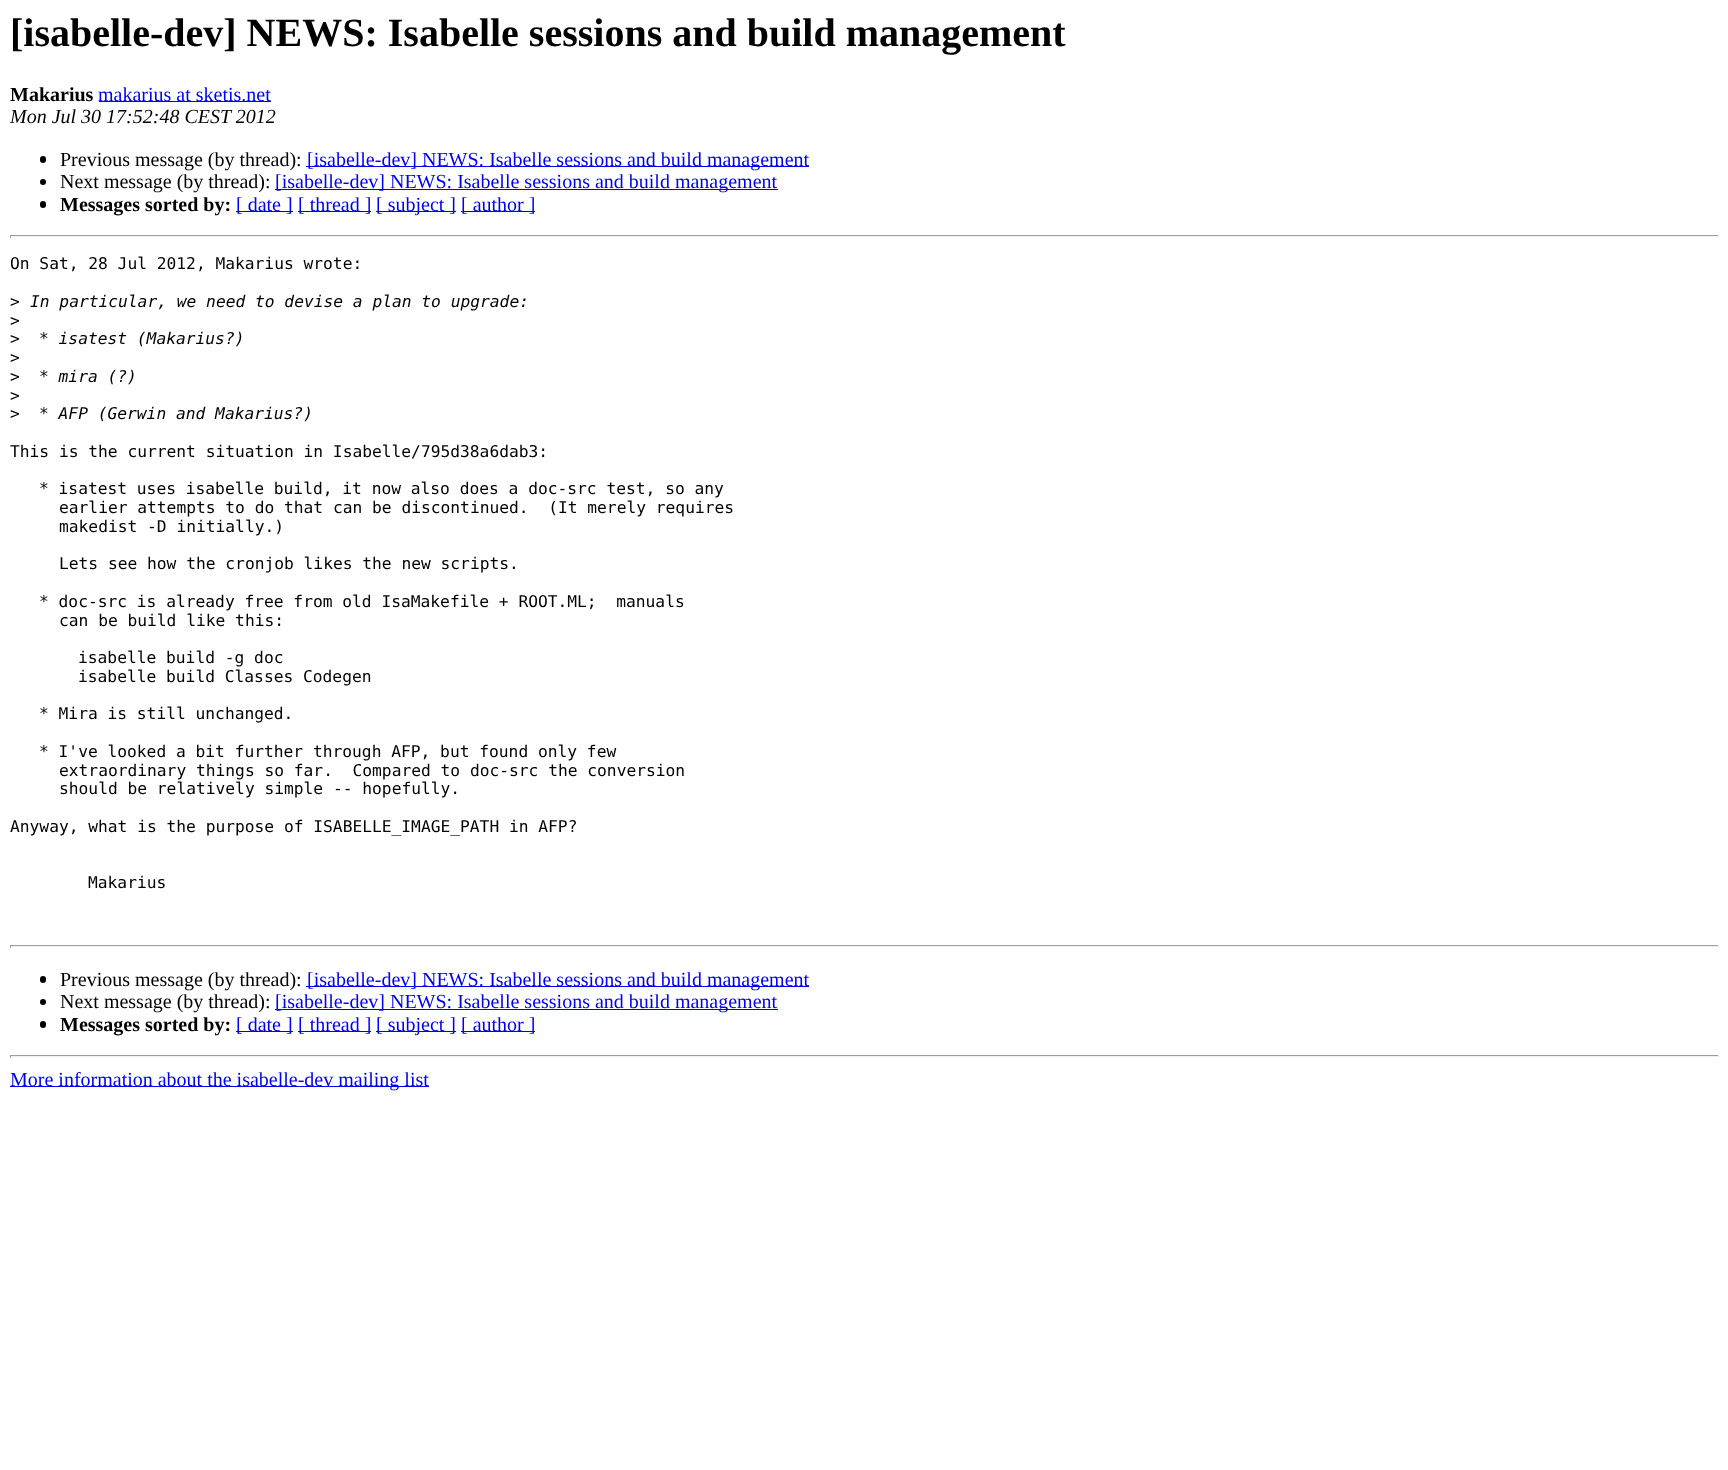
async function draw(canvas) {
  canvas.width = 1728;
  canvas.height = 1470;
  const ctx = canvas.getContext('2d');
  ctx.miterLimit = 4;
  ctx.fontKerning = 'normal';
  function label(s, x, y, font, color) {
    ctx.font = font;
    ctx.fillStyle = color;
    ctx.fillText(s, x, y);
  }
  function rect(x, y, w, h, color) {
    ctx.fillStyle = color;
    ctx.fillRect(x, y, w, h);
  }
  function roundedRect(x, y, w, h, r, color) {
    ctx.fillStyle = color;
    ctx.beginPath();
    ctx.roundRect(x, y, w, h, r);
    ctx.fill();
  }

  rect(0, 0, 1728, 1470, '#fff');
  label('[isabelle-dev] NEWS: Isabelle sessions and build management', 10, 46, 'bold 40px Liberation Serif', '#000');
  label('Makarius', 10, 101, 'bold 20px Liberation Serif', '#000');
  rect(99, 101, 172, 1, '#00e');
  label('makarius at sketis.net', 98, 101, '20px Liberation Serif', '#00e');
  label('Mon Jul 30 17:52:48 CEST 2012', 10, 123, 'italic 20px Liberation Serif', '#000');
  roundedRect(40, 156, 6, 7, 3, '#000');
  label('Previous message (by thread):', 60, 166, '20px Liberation Serif', '#000');
  rect(306, 166, 503, 1, '#00e');
  label('[isabelle-dev] NEWS: Isabelle sessions and build management', 307, 166, '20px Liberation Serif', '#00e');
  ctx.fillStyle = '#000';
  ctx.beginPath();
  ctx.arc(43, 182, 3, 0, 2 * Math.PI);
  ctx.fill();
  label('Next message (by thread):', 60, 188, '20px Liberation Serif', '#000');
  rect(275, 189, 503, 1, '#00e');
  label('[isabelle-dev] NEWS: Isabelle sessions and build management', 275, 188, '20px Liberation Serif', '#00e');
  roundedRect(40, 201, 6, 7, 3, '#000');
  label('Messages sorted by:', 60, 211, 'bold 20px Liberation Serif', '#000');
  rect(236, 211, 57, 1, '#00e');
  label('[ date ]', 236, 211, '20px Liberation Serif', '#00e');
  rect(298, 211, 73, 1, '#00e');
  label('[ thread ]', 298, 211, '20px Liberation Serif', '#00e');
  rect(376, 211, 80, 1, '#00e');
  label('[ subject ]', 376, 211, '20px Liberation Serif', '#00e');
  rect(461, 211, 74, 1, '#00e');
  label('[ author ]', 461, 211, '20px Liberation Serif', '#00e');
  rect(10, 235, 1709, 1, '#9f9f9f');
  rect(1718, 235, 1, 3, '#eee');
  rect(10, 236, 1709, 1, '#eee');
  rect(10, 235, 1, 3, '#9f9f9f');
  label('On Sat, 28 Jul 2012, Makarius wrote:', 10, 269, '16.25px DejaVu Sans Mono', '#000');
  label('>', 10, 307, '16.25px DejaVu Sans Mono', '#000');
  label('In particular, we need to devise a plan to upgrade:', 30, 307, 'italic 16.25px DejaVu Sans Mono', '#000');
  label('>', 10, 326, '16.25px DejaVu Sans Mono', '#000');
  label('>', 10, 344, '16.25px DejaVu Sans Mono', '#000');
  label('* isatest (Makarius?)', 39, 344, 'italic 16.25px DejaVu Sans Mono', '#000');
  label('>', 10, 363, '16.25px DejaVu Sans Mono', '#000');
  label('>', 10, 382, '16.25px DejaVu Sans Mono', '#000');
  label('* mira (?)', 39, 382, 'italic 16.25px DejaVu Sans Mono', '#000');
  label('>', 10, 401, '16.25px DejaVu Sans Mono', '#000');
  label('>', 10, 419, '16.25px DejaVu Sans Mono', '#000');
  label('* AFP (Gerwin and Makarius?)', 39, 419, 'italic 16.25px DejaVu Sans Mono', '#000');
  label('This is the current situation in Isabelle/795d38a6dab3:', 10, 457, '16.25px DejaVu Sans Mono', '#000');
  label('* isatest uses isabelle build, it now also does a doc-src test, so any', 39, 494, '16.25px DejaVu Sans Mono', '#000');
  label('earlier attempts to do that can be discontinued.  (It merely requires', 59, 513, '16.25px DejaVu Sans Mono', '#000');
  label('makedist -D initially.)', 59, 532, '16.25px DejaVu Sans Mono', '#000');
  label('Lets see how the cronjob likes the new scripts.', 59, 569, '16.25px DejaVu Sans Mono', '#000');
  label('* doc-src is already free from old IsaMakefile + ROOT.ML;  manuals', 39, 607, '16.25px DejaVu Sans Mono', '#000');
  label('can be build like this:', 59, 626, '16.25px DejaVu Sans Mono', '#000');
  label('isabelle build -g doc', 78, 663, '16.25px DejaVu Sans Mono', '#000');
  label('isabelle build Classes Codegen', 78, 682, '16.25px DejaVu Sans Mono', '#000');
  label('* Mira is still unchanged.', 39, 719, '16.25px DejaVu Sans Mono', '#000');
  label('* I\'ve looked a bit further through AFP, but found only few', 39, 757, '16.25px DejaVu Sans Mono', '#000');
  label('extraordinary things so far.  Compared to doc-src the conversion', 59, 776, '16.25px DejaVu Sans Mono', '#000');
  label('should be relatively simple -- hopefully.', 59, 794, '16.25px DejaVu Sans Mono', '#000');
  label('Anyway, what is the purpose of ISABELLE_IMAGE_PATH in AFP?', 10, 832, '16.25px DejaVu Sans Mono', '#000');
  label('Makarius', 88, 888, '16.25px DejaVu Sans Mono', '#000');
  rect(10, 945, 1709, 1, '#9f9f9f');
  rect(1718, 945, 1, 3, '#eee');
  rect(10, 946, 1709, 1, '#eee');
  rect(10, 945, 1, 3, '#9f9f9f');
  roundedRect(40, 976, 6, 7, 3, '#000');
  label('Previous message (by thread):', 60, 986, '20px Liberation Serif', '#000');
  rect(306, 986, 503, 1, '#00e');
  label('[isabelle-dev] NEWS: Isabelle sessions and build management', 307, 986, '20px Liberation Serif', '#00e');
  ctx.fillStyle = '#000';
  ctx.beginPath();
  ctx.arc(43, 1002, 3, 0, 2 * Math.PI);
  ctx.fill();
  label('Next message (by thread):', 60, 1008, '20px Liberation Serif', '#000');
  rect(275, 1009, 503, 1, '#00e');
  label('[isabelle-dev] NEWS: Isabelle sessions and build management', 275, 1008, '20px Liberation Serif', '#00e');
  roundedRect(40, 1021, 6, 7, 3, '#000');
  label('Messages sorted by:', 60, 1031, 'bold 20px Liberation Serif', '#000');
  rect(236, 1031, 57, 1, '#00e');
  label('[ date ]', 236, 1031, '20px Liberation Serif', '#00e');
  rect(298, 1031, 73, 1, '#00e');
  label('[ thread ]', 298, 1031, '20px Liberation Serif', '#00e');
  rect(376, 1031, 80, 1, '#00e');
  label('[ subject ]', 376, 1031, '20px Liberation Serif', '#00e');
  rect(461, 1031, 74, 1, '#00e');
  label('[ author ]', 461, 1031, '20px Liberation Serif', '#00e');
  rect(10, 1055, 1709, 1, '#9f9f9f');
  rect(1718, 1055, 1, 3, '#eee');
  rect(10, 1056, 1709, 1, '#eee');
  rect(10, 1055, 1, 3, '#9f9f9f');
  rect(10, 1086, 419, 1, '#00e');
  label('More information about the isabelle-dev mailing list', 10, 1086, '20px Liberation Serif', '#00e');
}

draw(document.querySelector('canvas'));
